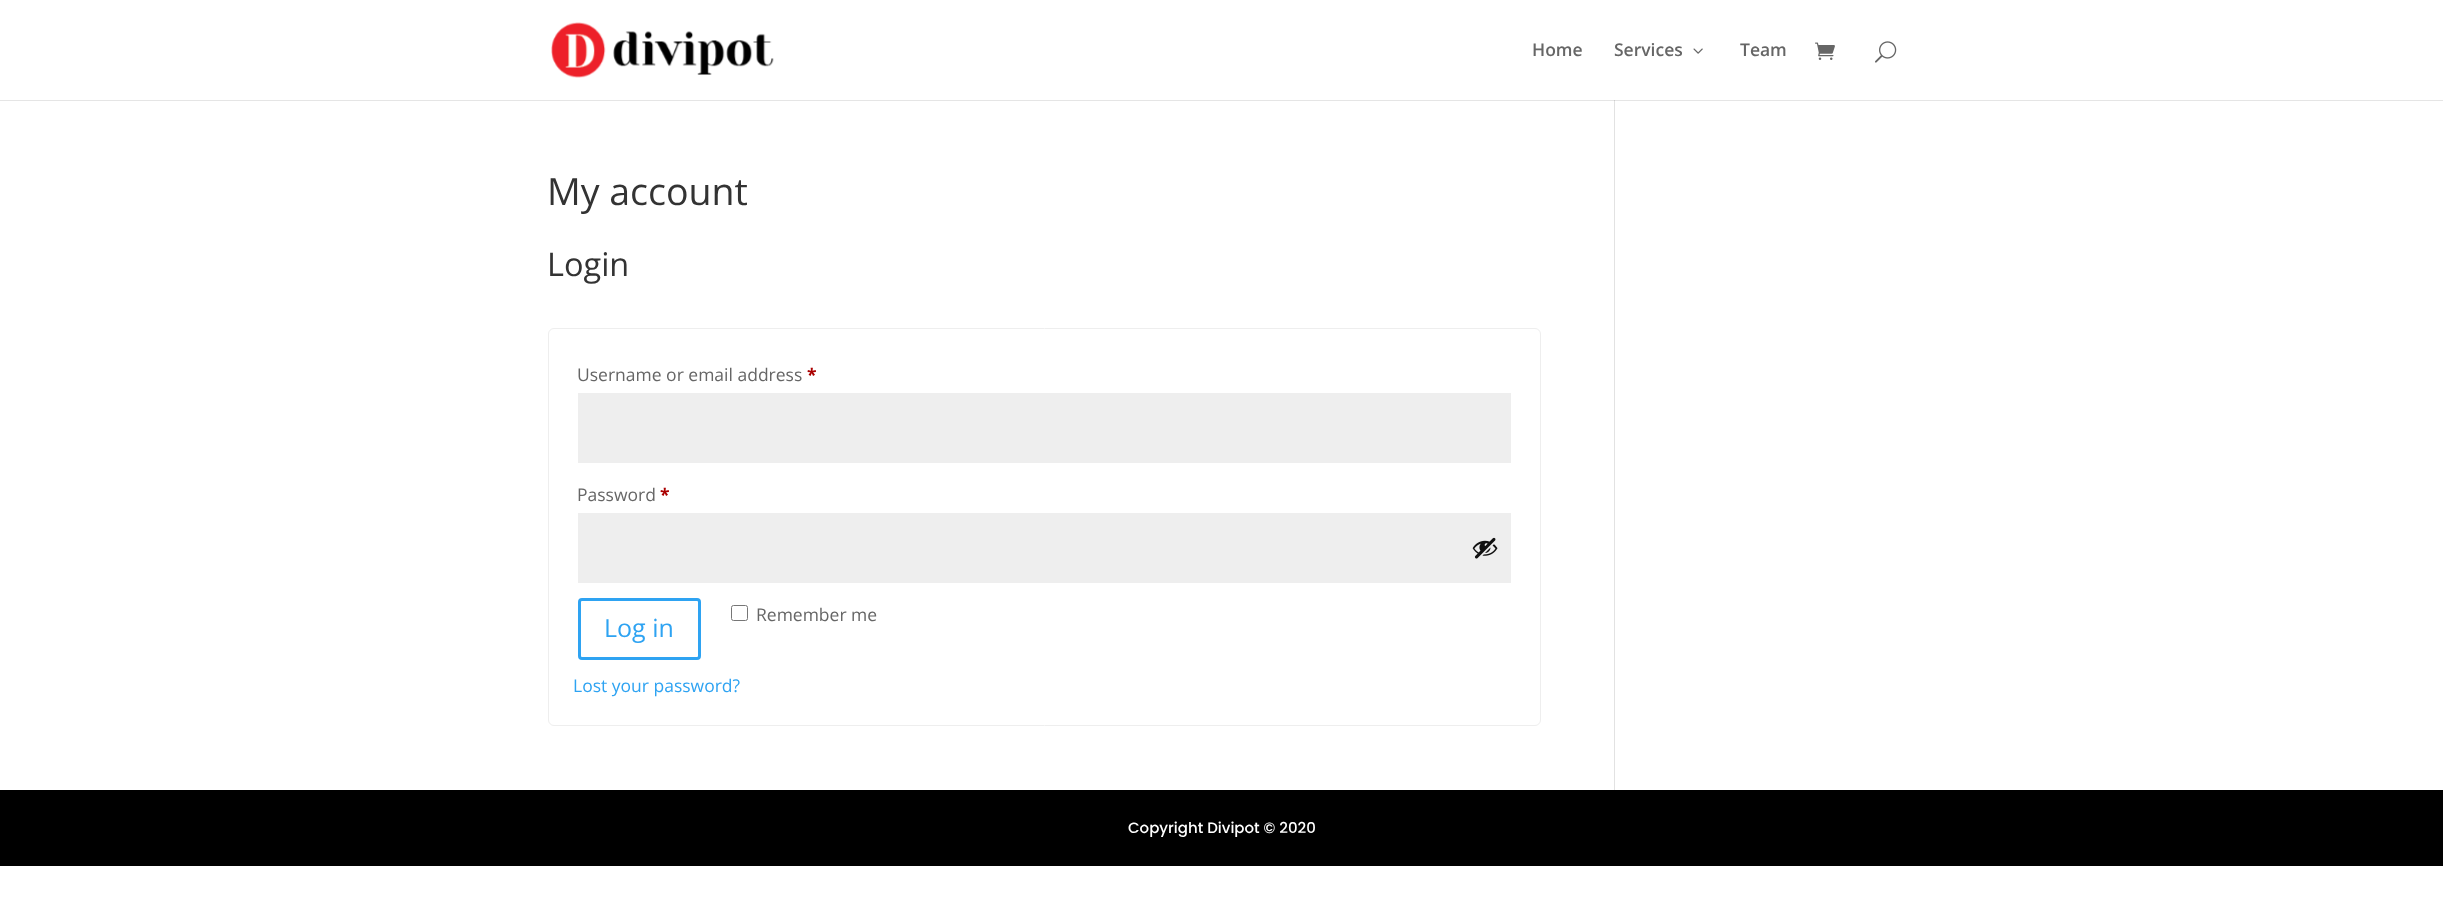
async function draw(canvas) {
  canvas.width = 2443;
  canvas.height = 906;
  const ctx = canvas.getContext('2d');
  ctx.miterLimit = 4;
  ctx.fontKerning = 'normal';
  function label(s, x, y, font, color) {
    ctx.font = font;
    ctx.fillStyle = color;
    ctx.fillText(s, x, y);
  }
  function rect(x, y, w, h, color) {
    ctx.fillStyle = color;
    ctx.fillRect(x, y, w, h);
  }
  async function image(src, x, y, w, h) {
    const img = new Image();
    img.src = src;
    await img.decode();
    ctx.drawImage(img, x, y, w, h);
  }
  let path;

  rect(0, 0, 2443, 906, '#fff');
  rect(1614, 100, 1, 690, '#e2e2e2');
  ctx.fillStyle = '#0000001a';
  path = new Path2D('M0 100V101H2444V1V100Z');
  ctx.fill(path);
  await image('assets/img1.png', 551, 22, 223, 56);
  label('Home', 1532, 56, '600 17.5px Open Sans', '#666');
  label('Services', 1614, 56, '600 17.5px Open Sans', '#666');
  await image('assets/img2.png', 1693, 48, 10, 6);
  label('Team', 1740, 56, '600 17.5px Open Sans', '#666');
  await image('assets/img3.png', 1815, 42, 20, 18);
  await image('assets/img4.png', 1875, 41, 22, 22);
  label('My account', 547, 205, '37.5px Open Sans', '#333');
  label('Login', 547, 276, '32.5px Open Sans', '#333');
  ctx.beginPath();
  ctx.roundRect(548.5, 328.5, 992, 397, 5.5);
  ctx.strokeStyle = '#eee';
  ctx.stroke();
  label('Username or email address', 577, 381, '17.5px Open Sans', '#666');
  label('*', 807, 381, 'bold 17.5px Open Sans', '#a00');
  rect(578, 393, 933, 70, '#eee');
  label('Password', 577, 501, '17.5px Open Sans', '#666');
  label('*', 660, 501, 'bold 17.5px Open Sans', '#a00');
  rect(578, 513, 933, 70, '#eee');
  await image('assets/img5.png', 1472, 537, 26, 22);
  ctx.beginPath();
  ctx.roundRect(731.5, 605.5, 16, 15, 2);
  ctx.strokeStyle = '#767676';
  ctx.stroke();
  label('Remember me', 756, 621, '17.5px Open Sans', '#666');
  ctx.beginPath();
  ctx.roundRect(579.5, 599.5, 120, 59, 2.5);
  ctx.strokeStyle = '#2ea3f2';
  ctx.lineWidth = 3;
  ctx.stroke();
  label('Log in', 604, 637, '25px Open Sans', '#2ea3f2');
  label('Lost your password?', 573, 692, '17.5px Open Sans', '#2ea3f2');
  rect(0, 790, 2443, 76, '#000');
  label('Copyright Divipot © 2020', 1128, 833, '500 15px Poppins', '#fff');
}

draw(document.querySelector('canvas'));
